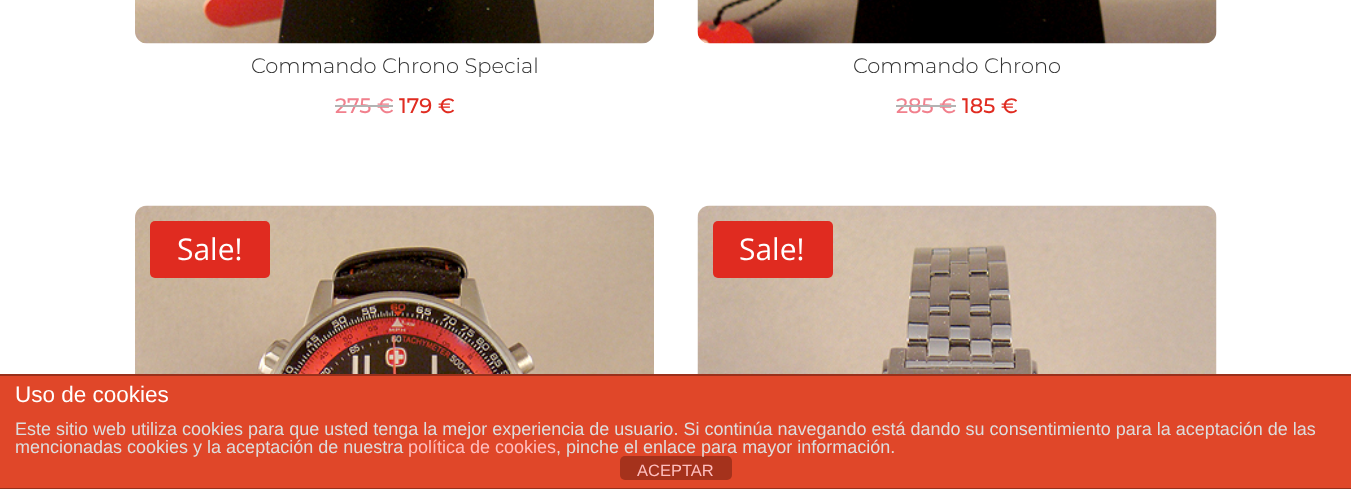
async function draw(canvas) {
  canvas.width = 1351;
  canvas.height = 489;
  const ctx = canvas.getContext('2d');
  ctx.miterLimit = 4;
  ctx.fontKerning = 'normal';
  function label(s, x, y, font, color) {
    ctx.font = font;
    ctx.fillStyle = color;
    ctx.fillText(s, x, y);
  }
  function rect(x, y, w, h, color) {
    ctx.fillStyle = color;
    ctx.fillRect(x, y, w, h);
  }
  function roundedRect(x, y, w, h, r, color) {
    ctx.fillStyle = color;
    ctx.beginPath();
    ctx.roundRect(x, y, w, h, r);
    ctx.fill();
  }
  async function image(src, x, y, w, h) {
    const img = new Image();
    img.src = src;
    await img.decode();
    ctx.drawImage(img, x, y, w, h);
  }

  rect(0, 0, 1351, 489, '#fff');
  await image('assets/img1.png', 135, 0, 519, 44);
  label('Commando Chrono Special', 251, 73, '300 21px Montserrat', '#333');
  label('275 €', 335, 113, '500 21px Montserrat', '#f1808d');
  rect(335, 105, 58, 2, '#b3b3b3');
  label('179 €', 399, 113, '500 21px Montserrat', '#e02b20');
  await image('assets/img2.png', 697, 0, 520, 44);
  label('Commando Chrono', 853, 73, '300 21px Montserrat', '#333');
  label('285 €', 896, 113, '500 21px Montserrat', '#f1808d');
  rect(896, 105, 60, 2, '#b3b3b3');
  label('185 €', 962, 113, '500 21px Montserrat', '#e02b20');
  await image('assets/img3.png', 135, 205, 519, 169);
  roundedRect(150, 221, 120, 57, 5, '#e02b20');
  label('Sale!', 177, 260, '30px Open Sans', '#fff');
  await image('assets/img4.png', 697, 205, 520, 169);
  roundedRect(713, 221, 120, 57, 5, '#e02b20');
  label('Sale!', 739, 260, '30px Open Sans', '#fff');
  rect(0, 376, 1351, 112, '#e04729');
  rect(0, 374, 1351, 2, '#99301b');
  rect(0, 488, 1351, 1, '#99301b');
  label('Uso de cookies', 15, 402, '22.5px Liberation Sans', '#fff');
  label('Este sitio web utiliza cookies para que usted tenga la mejor experiencia de usuario. Si continúa navegando está dando su consentimiento para la aceptación de las', 15, 435, '18px Liberation Sans', '#ddd');
  label('mencionadas cookies y la aceptación de nuestra', 15, 453, '18px Liberation Sans', '#ddd');
  label('política de cookies', 408, 453, '18px Liberation Sans', '#febebe');
  roundedRect(620, 456, 112, 24, 5, '#a5321c');
  label(', pinche el enlace para mayor información.', 556, 453, '18px Liberation Sans', '#ddd');
  label('ACEPTAR', 637, 476, '16.5px Liberation Sans', '#febebe');
}

draw(document.querySelector('canvas'));
